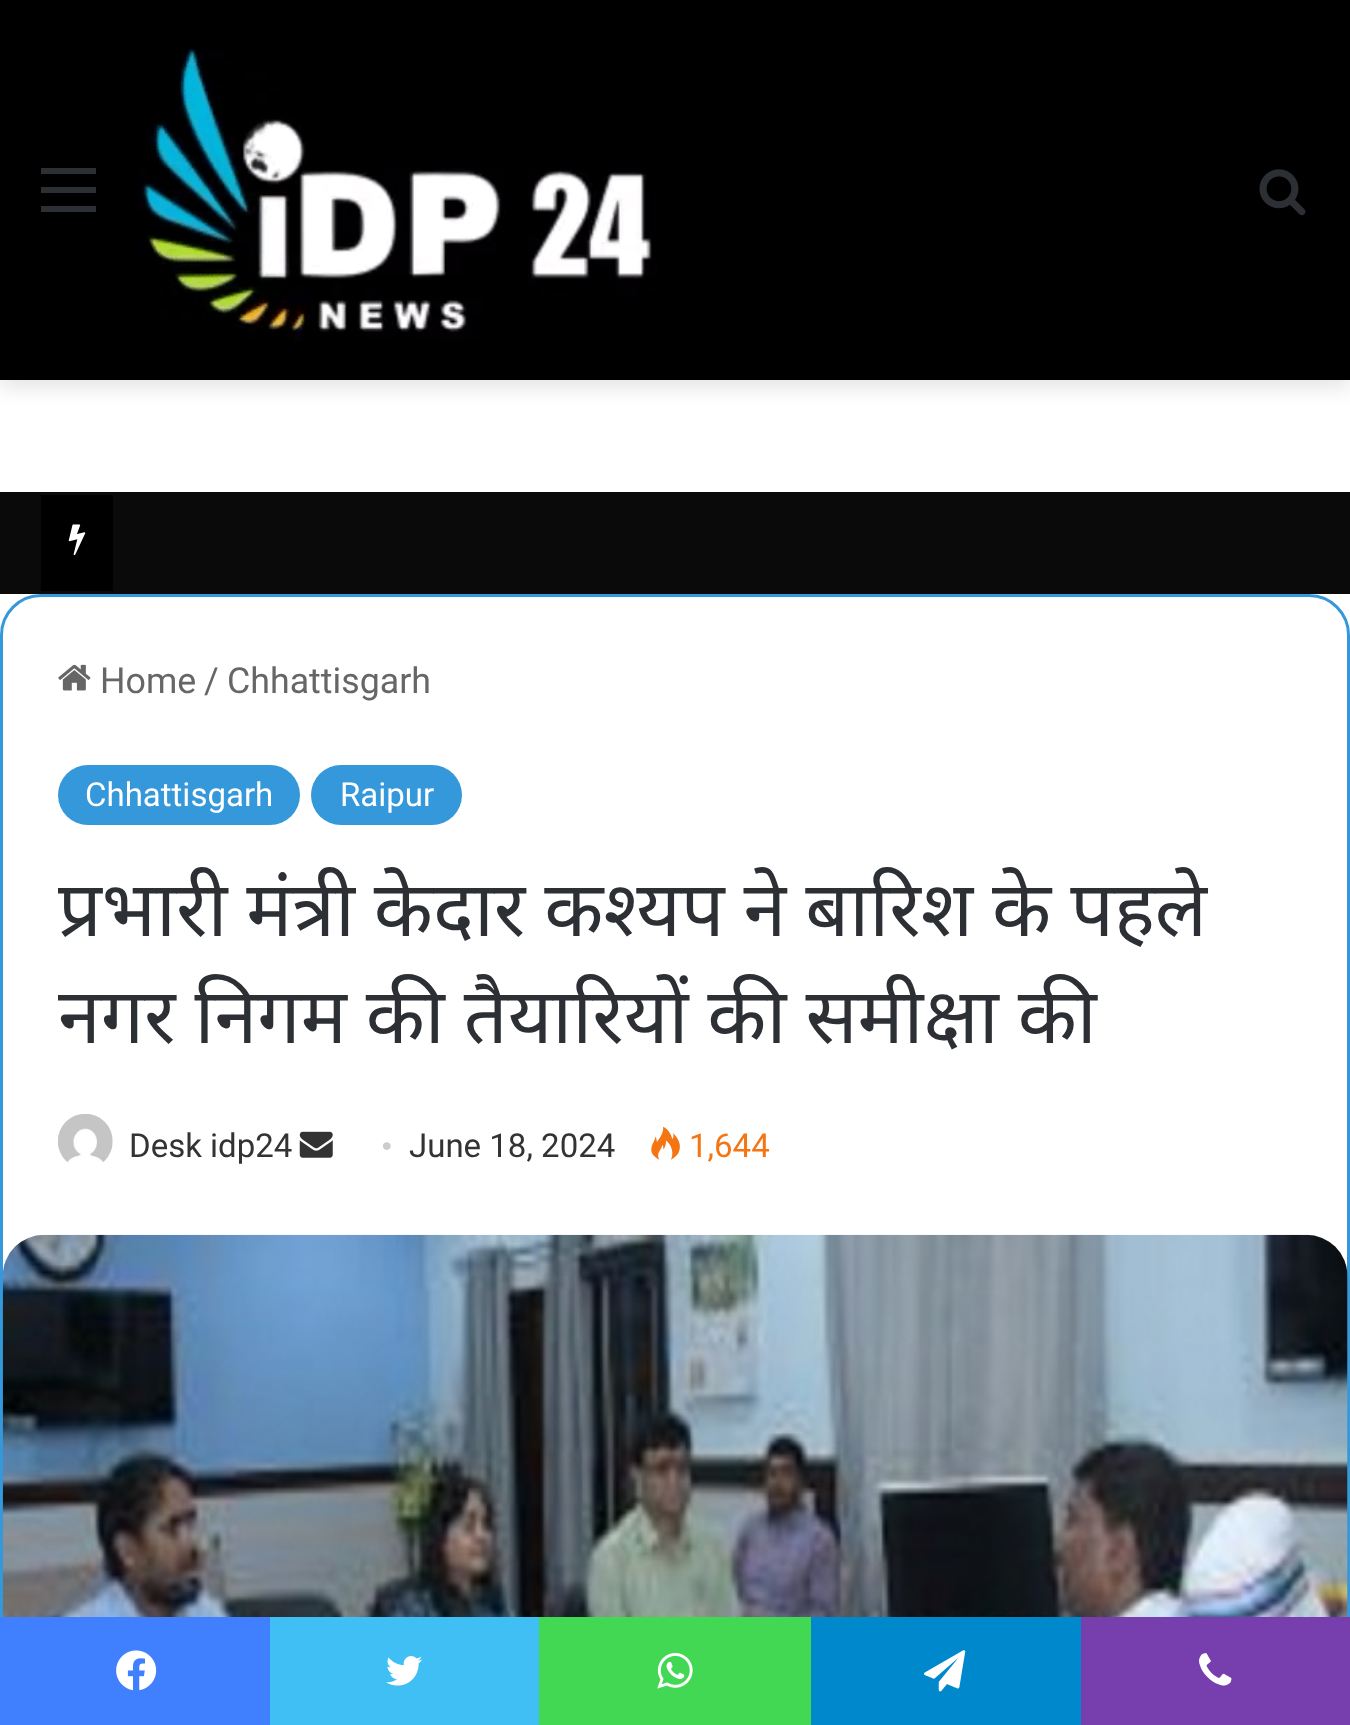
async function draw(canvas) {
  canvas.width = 1350;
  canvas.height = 1725;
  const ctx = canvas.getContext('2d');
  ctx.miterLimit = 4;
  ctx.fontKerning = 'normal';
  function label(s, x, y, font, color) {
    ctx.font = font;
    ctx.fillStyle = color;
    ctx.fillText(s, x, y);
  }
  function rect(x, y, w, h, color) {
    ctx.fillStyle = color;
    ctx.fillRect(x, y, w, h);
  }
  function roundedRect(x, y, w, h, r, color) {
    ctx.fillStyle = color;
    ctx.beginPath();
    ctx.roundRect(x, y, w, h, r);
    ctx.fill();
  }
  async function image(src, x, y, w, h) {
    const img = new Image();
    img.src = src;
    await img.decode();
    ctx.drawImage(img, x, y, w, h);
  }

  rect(0, 0, 1350, 1725, '#fff');
  ctx.fillStyle = '#0000001a';
  ctx.filter = 'blur(9.5px)';
  ctx.beginPath();
  ctx.rect(0, 8, 1350, 380);
  ctx.fill();
  ctx.filter = 'none';
  rect(0, 0, 1350, 380, '#000');
  rect(41, 187, 55, 6, '#2c2f34');
  rect(41, 168, 55, 6, '#2c2f34');
  rect(41, 206, 55, 6, '#2c2f34');
  await image('assets/img1.png', 138, 47, 519, 294);
  await image('assets/img2.png', 1259, 169, 47, 47);
  rect(0, 492, 1350, 102, '#0a0a0a');
  rect(41, 495, 72, 96, '#000');
  await image('assets/img3.png', 68, 524, 18, 32);
  ctx.beginPath();
  ctx.roundRect(1.5, 595.5, 1347, 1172, 39.5);
  ctx.strokeStyle = '#3498db';
  ctx.lineWidth = 3;
  ctx.stroke();
  await image('assets/img4.png', 58, 664, 33, 27);
  label('Home', 100, 693, '35.75px Roboto', '#666');
  label('/', 204, 693, '35.75px Roboto', '#666');
  label('Chhattisgarh', 227, 693, '35.75px Roboto', '#666');
  roundedRect(58, 765, 242, 60, 30, '#3498db');
  label('Chhattisgarh', 85, 806, '33px Roboto', '#fff');
  roundedRect(311, 765, 151, 60, 30, '#3498db');
  label('Raipur', 340, 806, '33px Roboto', '#fff');
  ctx.wordSpacing = '-1px';
  label('प्रभारी मंत्री केदार कश्यप ने बारिश के पहले', 58, 936, '77px Noto Sans', '#2c2f34');
  label('नगर निगम की तैयारियों की समीक्षा की', 58, 1043, '77px Noto Sans', '#2c2f34');
  await image('assets/img5.png', 57, 1114, 56, 49);
  ctx.wordSpacing = '0px';
  label('Desk idp24', 129, 1157, '33px Roboto', '#333');
  await image('assets/img6.png', 299, 1131, 34, 27);
  label('•', 381, 1157, '33px Liberation Serif', '#ccc');
  label('June 18, 2024', 409, 1157, '33px Roboto', '#333');
  await image('assets/img7.png', 651, 1126, 29, 34);
  label('1,644', 689, 1157, '33px Roboto', '#f47512');
  await image('assets/img8.png', 2, 1234, 1346, 383);
  rect(0, 1617, 270, 108, '#4080ff');
  await image('assets/img9.png', 116, 1650, 41, 41);
  rect(270, 1617, 269, 108, '#40bff5');
  await image('assets/img10.png', 386, 1656, 37, 30);
  rect(539, 1617, 272, 108, '#43d854');
  await image('assets/img11.png', 657, 1653, 36, 36);
  rect(811, 1617, 270, 108, '#08c');
  await image('assets/img12.png', 924, 1650, 42, 42);
  rect(1081, 1617, 269, 108, '#773ead');
  await image('assets/img13.png', 1199, 1653, 33, 33);
}

draw(document.querySelector('canvas'));
